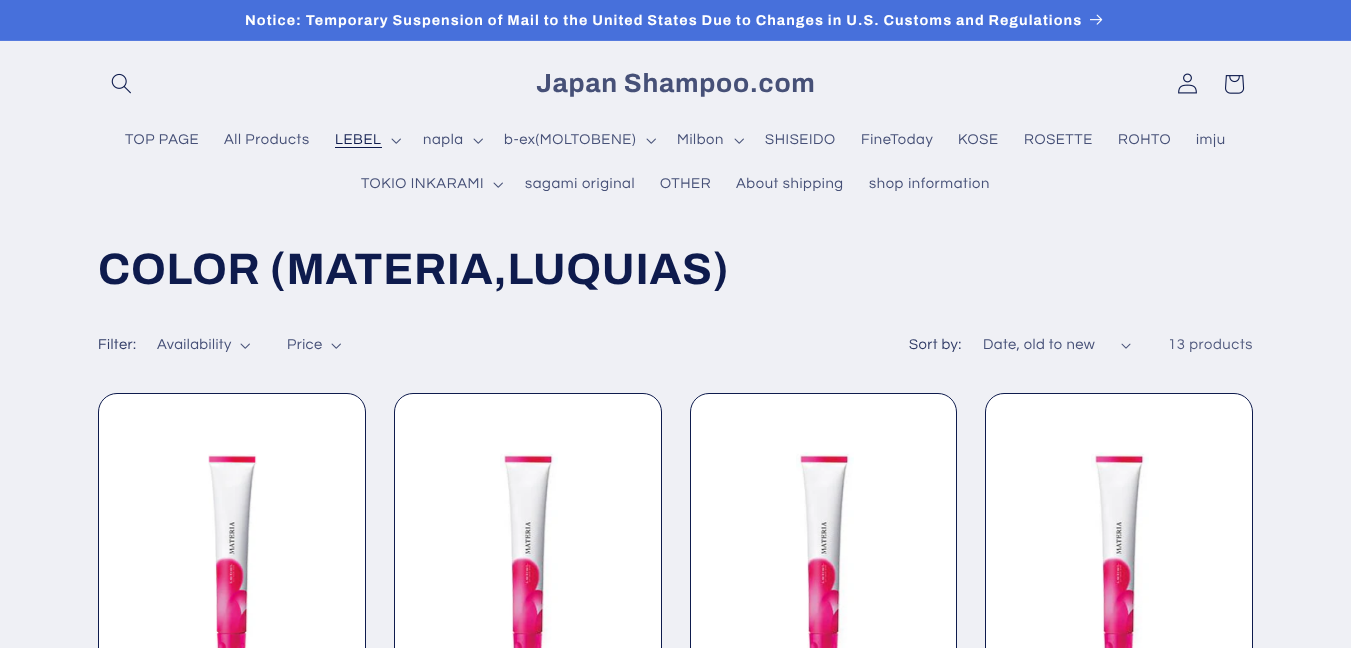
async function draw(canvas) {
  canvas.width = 1351;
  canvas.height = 648;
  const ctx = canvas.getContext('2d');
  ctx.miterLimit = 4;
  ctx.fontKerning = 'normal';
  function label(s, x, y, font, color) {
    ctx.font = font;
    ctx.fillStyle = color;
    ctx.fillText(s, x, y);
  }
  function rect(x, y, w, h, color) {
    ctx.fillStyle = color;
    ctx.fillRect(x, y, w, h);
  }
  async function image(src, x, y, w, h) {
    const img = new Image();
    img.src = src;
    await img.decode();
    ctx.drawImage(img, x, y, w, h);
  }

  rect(0, 0, 1351, 648, '#eff0f5');
  rect(0, 0, 1351, 40, '#4770db');
  rect(0, 40, 1351, 1, '#567bde');
  ctx.letterSpacing = '1.05px';
  label('Notice: Temporary Suspension of Mail to the United States Due to Changes in U.S. Customs and Regulations', 245, 25, 'bold 14.3px Archivo', '#fff');
  await image('assets/img1.png', 1090, 14, 13, 11);
  await image('assets/img2.png', 111, 73, 20, 21);
  ctx.letterSpacing = '0.7px';
  label('Japan Shampoo.com', 536, 92, 'bold 26.4px Archivo', '#465077');
  await image('assets/img3.png', 1178, 73, 19, 21);
  await image('assets/img4.png', 1225, 75, 20, 19);
  ctx.letterSpacing = '0.6px';
  label('TOP PAGE', 125, 144, '14.75px Questrial', '#465077');
  label('All Products', 224, 144, '14.75px Questrial', '#465077');
  label('LEBEL', 335, 144, '14.75px Questrial', '#0e1b4d');
  rect(335, 147, 47, 1, '#0e1b4d');
  await image('assets/img5.png', 391, 138, 10, 6);
  label('napla', 423, 144, '14.75px Questrial', '#465077');
  await image('assets/img5.png', 473, 138, 10, 6);
  label('b-ex(MOLTOBENE)', 504, 144, '14.75px Questrial', '#465077');
  await image('assets/img5.png', 646, 138, 10, 6);
  label('Milbon', 677, 144, '14.75px Questrial', '#465077');
  await image('assets/img5.png', 734, 138, 10, 6);
  label('SHISEIDO', 765, 144, '14.75px Questrial', '#465077');
  label('FineToday', 861, 144, '14.75px Questrial', '#465077');
  label('KOSE', 958, 144, '14.75px Questrial', '#465077');
  label('ROSETTE', 1024, 144, '14.75px Questrial', '#465077');
  label('ROHTO', 1118, 144, '14.75px Questrial', '#465077');
  label('imju', 1196, 144, '14.75px Questrial', '#465077');
  label('TOKIO INKARAMI', 361, 188, '14.75px Questrial', '#465077');
  await image('assets/img5.png', 493, 182, 10, 6);
  label('sagami original', 525, 188, '14.75px Questrial', '#465077');
  label('OTHER', 660, 188, '14.75px Questrial', '#465077');
  label('About shipping', 736, 188, '14.75px Questrial', '#465077');
  label('shop information', 869, 188, '14.75px Questrial', '#465077');
  ctx.letterSpacing = '0.7px';
  label('COLOR (MATERIA,LUQUIAS)', 98, 284, 'bold 44px Archivo', '#0e1b4d');
  ctx.letterSpacing = '0.4px';
  label('Filter:', 98, 349, '14.75px Questrial', '#303b66');
  label('Availability', 157, 349, '14.75px Questrial', '#465077');
  await image('assets/img5.png', 240, 343, 10, 6);
  label('Price', 287, 349, '14.75px Questrial', '#465077');
  await image('assets/img5.png', 331, 343, 10, 6);
  label('Sort by:', 909, 349, '14.75px Questrial', '#303b66');
  label('Date, old to new', 983, 349, '14.75px Questrial', '#465077');
  await image('assets/img6.png', 1121, 343, 10, 6);
  ctx.letterSpacing = '0.6px';
  label('13 products', 1168, 349, '14.75px Questrial', '#525b7f');
  ctx.fillStyle = '#fff';
  ctx.beginPath();
  ctx.roundRect(98.5, 393.5, 267, 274, 18.5);
  ctx.fill();
  ctx.strokeStyle = '#0e1b4d';
  ctx.stroke();
  await image('assets/img7.png', 208, 454, 49, 194);
  ctx.beginPath();
  ctx.roundRect(394.5, 393.5, 267, 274, 18.5);
  ctx.fill();
  ctx.stroke();
  await image('assets/img8.png', 500, 452, 58, 196);
  ctx.beginPath();
  ctx.roundRect(690.5, 393.5, 266, 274, 18.5);
  ctx.fill();
  ctx.stroke();
  await image('assets/img8.png', 796, 452, 58, 196);
  ctx.beginPath();
  ctx.roundRect(985.5, 393.5, 267, 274, 18.5);
  ctx.fill();
  ctx.stroke();
  await image('assets/img8.png', 1091, 452, 58, 196);
}

draw(document.querySelector('canvas'));
